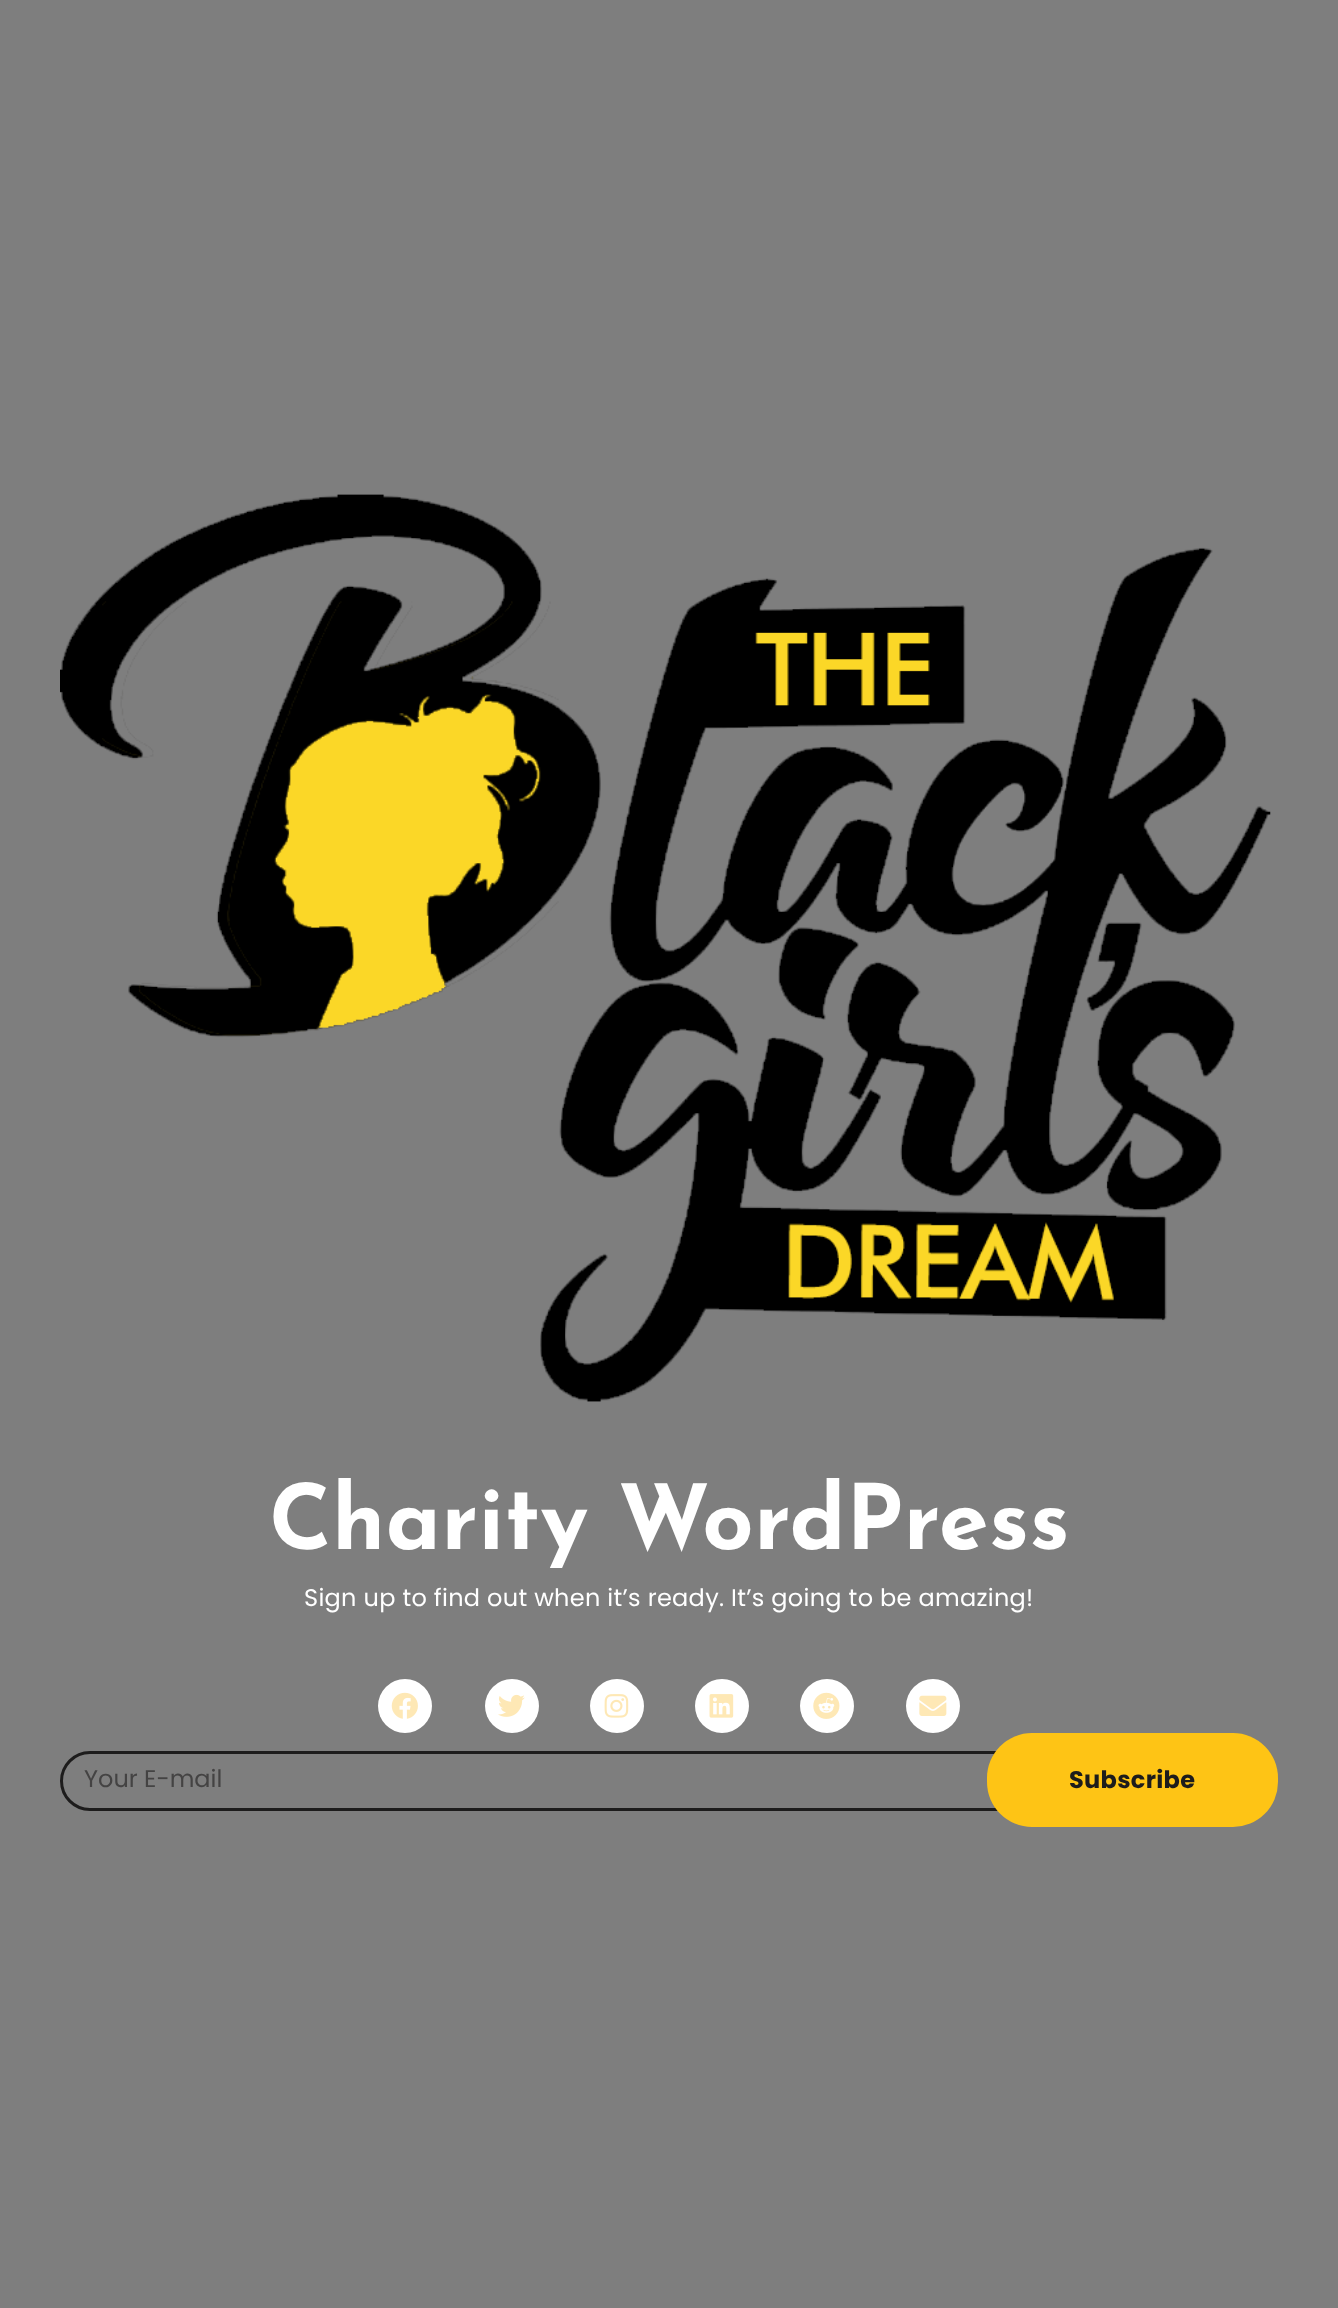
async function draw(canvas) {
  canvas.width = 1338;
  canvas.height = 2308;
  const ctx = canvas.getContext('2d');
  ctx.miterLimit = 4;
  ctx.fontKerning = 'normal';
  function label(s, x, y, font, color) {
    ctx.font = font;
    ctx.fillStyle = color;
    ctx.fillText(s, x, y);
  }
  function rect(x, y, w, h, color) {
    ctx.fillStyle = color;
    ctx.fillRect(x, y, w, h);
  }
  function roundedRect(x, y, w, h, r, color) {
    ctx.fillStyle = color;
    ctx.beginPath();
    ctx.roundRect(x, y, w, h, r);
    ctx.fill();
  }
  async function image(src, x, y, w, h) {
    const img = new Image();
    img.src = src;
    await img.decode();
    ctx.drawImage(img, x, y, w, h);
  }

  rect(0, 0, 1338, 2308, '#7e7e7e');
  await image('assets/img1.png', 60, 494, 1211, 908);
  ctx.letterSpacing = '0.3px';
  label('Charity WordPress', 269, 1549, 'bold 90px Josefin Sans', '#fff');
  label('Sign up to find out when it’s ready. It’s going to be amazing!', 304, 1606, '24px Poppins', '#fff');
  ctx.beginPath();
  ctx.arc(405, 1706, 27, 0, 2 * Math.PI);
  ctx.fill();
  await image('assets/img2.png', 391, 1692, 27, 27);
  ctx.beginPath();
  ctx.arc(512, 1706, 27, 0, 2 * Math.PI);
  ctx.fill();
  await image('assets/img3.png', 498, 1694, 27, 23);
  ctx.beginPath();
  ctx.arc(617, 1706, 27, 0, 2 * Math.PI);
  ctx.fill();
  await image('assets/img4.png', 604, 1694, 25, 24);
  ctx.beginPath();
  ctx.arc(722, 1706, 27, 0, 2 * Math.PI);
  ctx.fill();
  await image('assets/img5.png', 709, 1694, 25, 24);
  ctx.beginPath();
  ctx.arc(827, 1706, 27, 0, 2 * Math.PI);
  ctx.fill();
  await image('assets/img6.png', 813, 1692, 27, 27);
  ctx.beginPath();
  ctx.arc(933, 1706, 27, 0, 2 * Math.PI);
  ctx.fill();
  await image('assets/img7.png', 919, 1695, 28, 21);
  ctx.beginPath();
  ctx.roundRect(61.5, 1752.5, 972, 57, 28.5);
  ctx.strokeStyle = '#1d1c1c';
  ctx.lineWidth = 3;
  ctx.stroke();
  ctx.letterSpacing = '0px';
  label('Your E-mail', 84, 1787, '24px Poppins', '#444343');
  roundedRect(987, 1733, 291, 94, 45, '#fec415');
  ctx.letterSpacing = '0.3px';
  label('Subscribe', 1069, 1788, 'bold 24px Poppins', '#1d1c1c');
}

draw(document.querySelector('canvas'));
